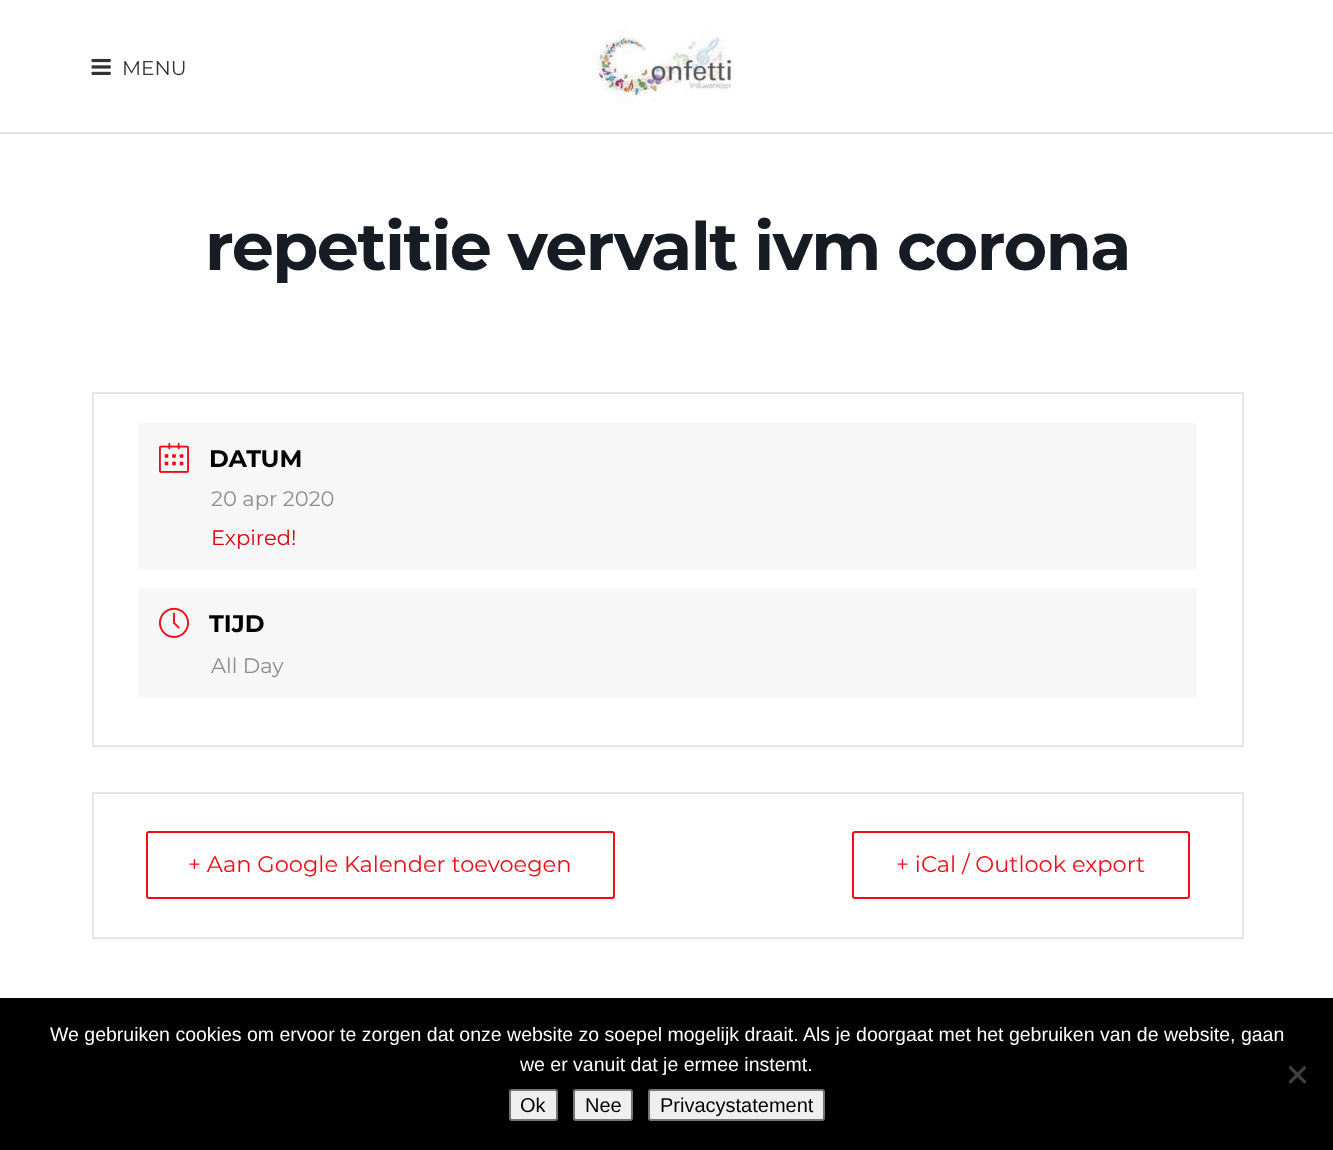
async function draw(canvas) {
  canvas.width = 1333;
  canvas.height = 1150;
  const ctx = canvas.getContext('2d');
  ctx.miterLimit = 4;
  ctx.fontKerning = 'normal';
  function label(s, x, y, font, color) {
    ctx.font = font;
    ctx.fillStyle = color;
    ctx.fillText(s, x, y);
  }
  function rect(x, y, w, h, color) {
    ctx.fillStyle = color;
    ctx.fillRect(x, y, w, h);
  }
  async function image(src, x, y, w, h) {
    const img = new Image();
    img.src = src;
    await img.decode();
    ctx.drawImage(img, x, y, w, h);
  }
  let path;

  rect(0, 0, 1333, 1150, '#fff');
  rect(0, 132, 1333, 2, '#e1e1e1');
  await image('assets/img1.png', 91, 58, 20, 17);
  label('MENU', 122, 75, '20px Montserrat', '#333');
  await image('assets/img2.png', 592, 30, 143, 72);
  ctx.letterSpacing = '-1.5px';
  label('repetitie vervalt ivm corona', 205, 270, 'bold 66.75px Montserrat', '#171c24');
  ctx.fillStyle = '#fbfbfb';
  path = new Path2D('M92 747V750H1244V395V747Z');
  ctx.fill(path);
  ctx.strokeStyle = '#e6e6e6';
  ctx.lineWidth = 2;
  ctx.strokeRect(93, 393, 1150, 353);
  rect(138, 423, 1059, 147, '#f7f7f7');
  await image('assets/img3.png', 159, 442, 30, 31);
  ctx.letterSpacing = '0px';
  label('DATUM', 209, 467, 'bold 24px Montserrat', '#000');
  label('20 apr 2020', 211, 506, '21px Montserrat', '#8d8d8d');
  label('Expired!', 211, 545, '21px Montserrat', '#d8000c');
  rect(138, 588, 1059, 110, '#f7f7f7');
  await image('assets/img4.png', 159, 607, 30, 31);
  label('TIJD', 209, 632, 'bold 24px Montserrat', '#000');
  label('All Day', 211, 673, '21px Montserrat', '#8d8d8d');
  ctx.fillStyle = '#fbfbfb';
  path = new Path2D('M92 939V942H1244V795V939Z');
  ctx.fill(path);
  ctx.strokeRect(93, 793, 1150, 145);
  ctx.fillStyle = '#f7f7f7';
  path = new Path2D('M146 897V900L148 902H612C616 902 615 898 615 896C615 897 614 898 612 898H148C147 898 147 898 146 897Z');
  ctx.fill(path);
  ctx.fillStyle = '#fff';
  ctx.beginPath();
  ctx.roundRect(147, 832, 467, 66, 2);
  ctx.fill();
  ctx.strokeStyle = '#ed0c18';
  ctx.stroke();
  label('+ Aan Google Kalender toevoegen', 188, 872, '22.5px Montserrat', '#ed0c18');
  ctx.fillStyle = '#f7f7f7';
  path = new Path2D('M852 896V899C852 901 853 902 855 902H1187C1189 902 1190 901 1190 899V837V835V896C1190 897 1188 898 1186 898H855C853 898 852 897 852 896Z');
  ctx.fill(path);
  ctx.fillStyle = '#fff';
  ctx.beginPath();
  ctx.roundRect(853, 832, 336, 66, 2);
  ctx.fill();
  ctx.stroke();
  label('+ iCal / Outlook export', 896, 872, '22.5px Montserrat', '#ed0c18');
  rect(0, 998, 1333, 152, '#000');
  label('We gebruiken cookies om ervoor te zorgen dat onze website zo soepel mogelijk draait. Als je doorgaat met het gebruiken van de website, gaan', 50, 1041, '19.5px Liberation Sans', '#fff');
  label('we er vanuit dat je ermee instemt.', 520, 1071, '19.5px Liberation Sans', '#fff');
  ctx.fillStyle = '#404040';
  path = new Path2D('M1304.5 1065.5L1306.5 1068L1290.5 1084L1288.5 1081.5Z');
  ctx.fill(path);
  path = new Path2D('M1288.5 1068L1290.5 1065.5L1306.5 1081.5L1304.5 1084Z');
  ctx.fill(path);
  ctx.fillStyle = '#efefef';
  ctx.beginPath();
  ctx.roundRect(510, 1090, 47, 30, 2);
  ctx.fill();
  ctx.strokeStyle = '#767676';
  ctx.stroke();
  label('Ok', 520, 1112, '20px Liberation Sans', '#000');
  ctx.fillStyle = '#efefef';
  ctx.beginPath();
  ctx.roundRect(574, 1090, 58, 30, 2);
  ctx.fill();
  ctx.stroke();
  label('Nee', 585, 1112, '20px Liberation Sans', '#000');
  ctx.fillStyle = '#efefef';
  ctx.beginPath();
  ctx.roundRect(649, 1090, 175, 30, 2);
  ctx.fill();
  ctx.stroke();
  label('Privacystatement', 660, 1112, '20px Liberation Sans', '#000');
}

draw(document.querySelector('canvas'));
